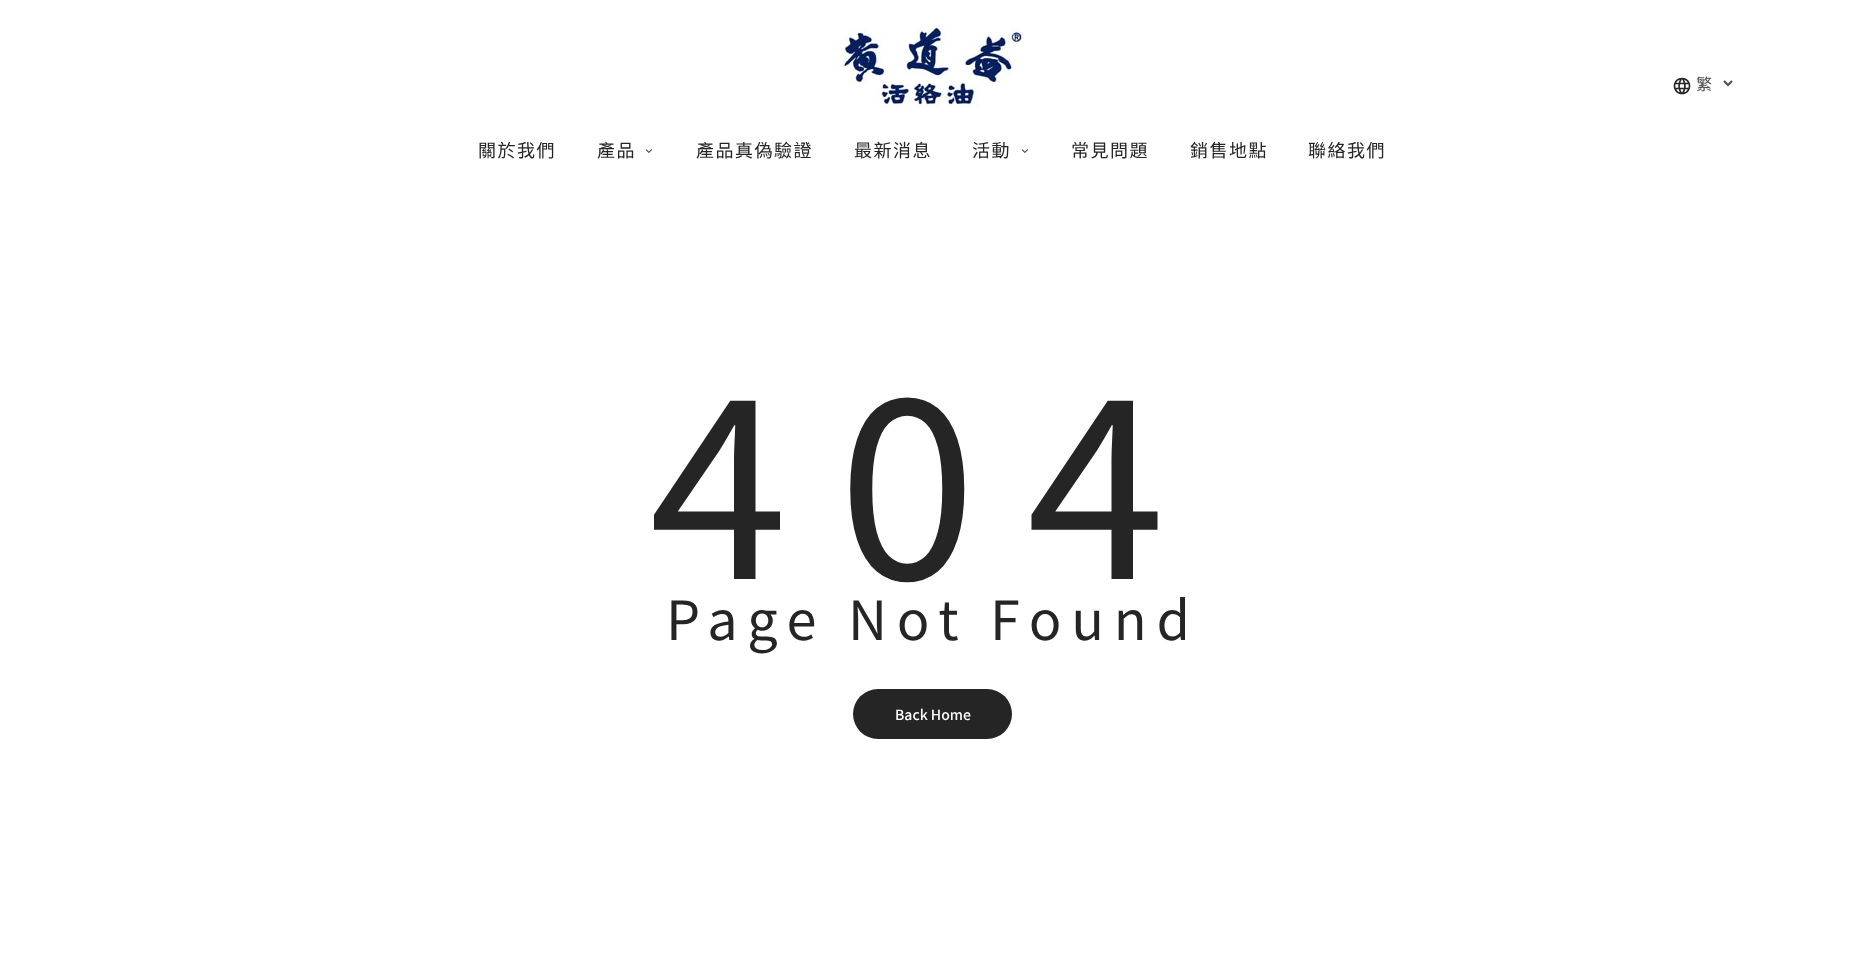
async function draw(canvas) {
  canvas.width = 1865;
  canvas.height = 966;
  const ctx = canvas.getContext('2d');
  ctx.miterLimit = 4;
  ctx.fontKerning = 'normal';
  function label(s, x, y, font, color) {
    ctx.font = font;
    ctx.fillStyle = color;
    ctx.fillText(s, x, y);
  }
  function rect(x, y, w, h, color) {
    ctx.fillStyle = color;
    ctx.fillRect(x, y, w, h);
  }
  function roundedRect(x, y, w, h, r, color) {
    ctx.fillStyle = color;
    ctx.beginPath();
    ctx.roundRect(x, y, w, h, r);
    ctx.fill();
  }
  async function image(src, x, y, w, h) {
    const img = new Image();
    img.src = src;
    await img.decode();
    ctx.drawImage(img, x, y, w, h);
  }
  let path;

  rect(0, 0, 1865, 966, '#fff');
  await image('assets/img1.png', 1673, 77, 18, 18);
  path = new Path2D('M1724 81L1728 85L1732 81');
  ctx.strokeStyle = '#4d4d4d';
  ctx.lineWidth = 2;
  ctx.stroke(path);
  ctx.letterSpacing = '1.5px';
  label('繁', 1696, 90, '16px Noto Sans HK', '#4d4d4d');
  await image('assets/img2.png', 843, 28, 180, 80);
  label('關於我們', 478, 157, '18px Noto Sans HK', '#252525');
  label('產品', 597, 157, '18px Noto Sans HK', '#252525');
  await image('assets/img3.png', 645, 149, 7, 4);
  label('產品真偽驗證', 696, 157, '18px Noto Sans HK', '#252525');
  label('最新消息', 854, 157, '18px Noto Sans HK', '#252525');
  label('活動', 972, 157, '18px Noto Sans HK', '#252525');
  await image('assets/img3.png', 1021, 149, 7, 4);
  label('常見問題', 1071, 157, '18px Noto Sans HK', '#252525');
  label('銷售地點', 1190, 157, '18px Noto Sans HK', '#252525');
  label('聯絡我們', 1308, 157, '18px Noto Sans HK', '#252525');
  ctx.letterSpacing = '50px';
  label('404', 649, 579, '250px Noto Sans HK', '#252525');
  ctx.letterSpacing = '9.75px';
  label('Page Not Found', 666, 640, '54px Noto Sans HK', '#252525');
  roundedRect(853, 689, 159, 50, 25, '#252525');
  ctx.letterSpacing = '0px';
  label('Back Home', 895, 720, '500 14px Noto Sans HK', '#fff');
}

draw(document.querySelector('canvas'));
